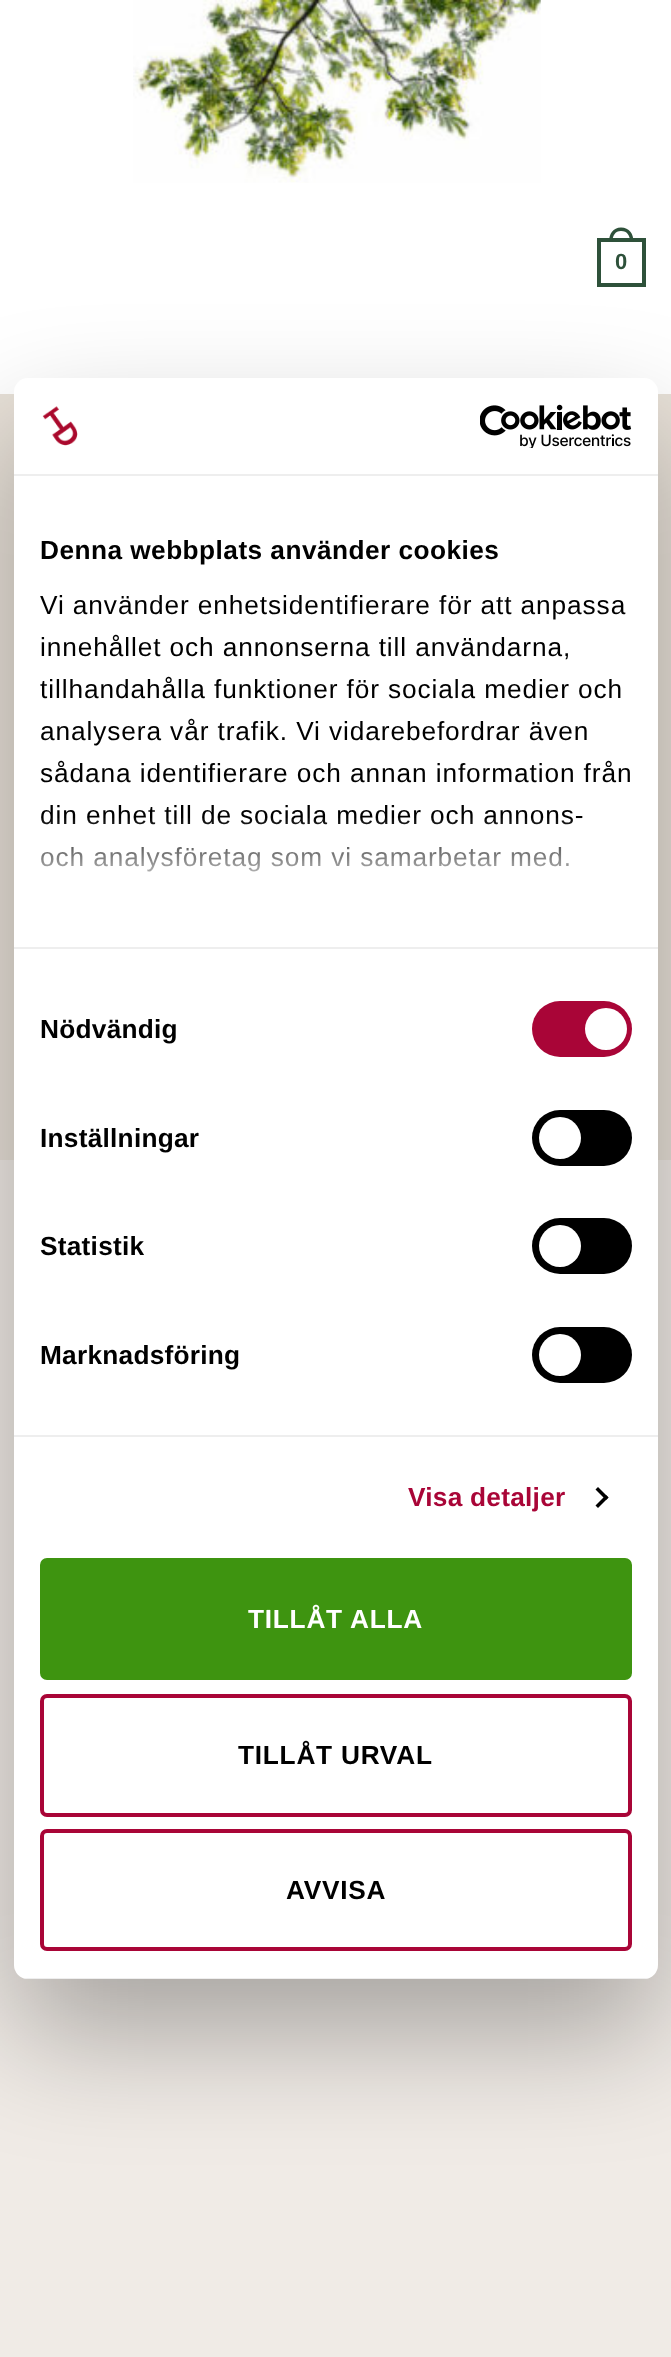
async function draw(canvas) {
  canvas.width = 671;
  canvas.height = 2357;
  const ctx = canvas.getContext('2d');
  ctx.miterLimit = 4;
  ctx.fontKerning = 'normal';
  function label(s, x, y, font, color) {
    ctx.font = font;
    ctx.fillStyle = color;
    ctx.fillText(s, x, y);
  }
  function rect(x, y, w, h, color) {
    ctx.fillStyle = color;
    ctx.fillRect(x, y, w, h);
  }
  function roundedRect(x, y, w, h, r, color) {
    ctx.fillStyle = color;
    ctx.beginPath();
    ctx.roundRect(x, y, w, h, r);
    ctx.fill();
  }
  async function image(src, x, y, w, h) {
    const img = new Image();
    img.src = src;
    await img.decode();
    ctx.drawImage(img, x, y, w, h);
  }
  let gradient, path;

  rect(0, 0, 671, 2357, '#e8e1d8');
  rect(0, 0, 671, 394, '#fff');
  await image('assets/img1.png', 133, 0, 408, 183);
  ctx.strokeStyle = '#2e513a';
  ctx.lineWidth = 4;
  ctx.strokeRect(599, 240, 45, 45);
  ctx.fillStyle = '#2e513a';
  path = new Path2D('M621 227.5C629.5 227.5 633.5 234 633.5 241.5H609C609 234 613 227.5 621 227.5ZM621 231C627.5 231 630 236 630 241.5H612.5C612.5 236 615 231 621 231Z');
  ctx.fill(path, 'evenodd');
  label('0', 615, 269, 'bold 22px Liberation Sans', '#2e513a');
  rect(0, 1160, 671, 1197, '#f0ebe6');
  ctx.fillStyle = '#0000004d';
  ctx.filter = 'blur(59.5px)';
  ctx.beginPath();
  ctx.roundRect(14, 434, 644, 1601, 14);
  ctx.fill();
  ctx.filter = 'none';
  roundedRect(14, 378, 644, 1601, 14, '#fff');
  rect(14, 474, 644, 2, '#eee');
  await image('assets/img2.png', 42, 406, 36, 40);
  await image('assets/img3.png', 480, 404, 152, 44);
  rect(14, 947, 644, 2, '#eee');
  ctx.letterSpacing = '0.45px';
  label('Denna webbplats använder cookies', 40, 559, 'bold 26.25px Liberation Sans', '#000');
  ctx.letterSpacing = '0.9px';
  label('Vi använder enhetsidentifierare för att anpassa', 40, 614, '26.25px Liberation Sans', '#000');
  label('innehållet och annonserna till användarna,', 40, 656, '26.25px Liberation Sans', '#000');
  label('tillhandahålla funktioner för sociala medier och', 40, 698, '26.25px Liberation Sans', '#000');
  label('analysera vår trafik. Vi vidarebefordrar även', 40, 740, '26.25px Liberation Sans', '#000');
  label('sådana identifierare och annan information från', 40, 782, '26.25px Liberation Sans', '#000');
  label('din enhet till de sociala medier och annons-', 40, 824, '26.25px Liberation Sans', '#000');
  label('och analysföretag som vi samarbetar med.', 40, 866, '26.25px Liberation Sans', '#000');
  gradient = ctx.createLinearGradient(325, 947, 325, 816);
  gradient.addColorStop(0, '#fff');
  gradient.addColorStop(0.5, '#ffffffcc');
  gradient.addColorStop(1, '#ffffff00');
  ctx.fillStyle = gradient;
  ctx.fillRect(41, 818, 531, 54);
  rect(14, 1435, 644, 2, '#eee');
  ctx.letterSpacing = '0.25px';
  label('Nödvändig', 40, 1038, 'bold 26.25px Liberation Sans', '#000');
  roundedRect(532, 1001, 100, 56, 28, '#a90537');
  ctx.fillStyle = '#fff';
  ctx.beginPath();
  ctx.arc(606, 1029, 21, 0, 2 * Math.PI);
  ctx.fill();
  label('Inställningar', 40, 1147, 'bold 26.25px Liberation Sans', '#000');
  roundedRect(532, 1110, 100, 56, 28, '#000');
  ctx.fillStyle = '#fff';
  ctx.beginPath();
  ctx.arc(560, 1138, 21, 0, 2 * Math.PI);
  ctx.fill();
  label('Statistik', 40, 1255, 'bold 26.25px Liberation Sans', '#000');
  roundedRect(532, 1218, 100, 56, 28, '#000');
  ctx.fillStyle = '#fff';
  ctx.beginPath();
  ctx.arc(560, 1246, 21, 0, 2 * Math.PI);
  ctx.fill();
  label('Marknadsföring', 40, 1364, 'bold 26.25px Liberation Sans', '#000');
  roundedRect(532, 1327, 100, 56, 28, '#000');
  ctx.fillStyle = '#fff';
  ctx.beginPath();
  ctx.arc(560, 1355, 21, 0, 2 * Math.PI);
  ctx.fill();
  label('Visa detaljer', 408, 1506, 'bold 26.25px Liberation Sans', '#a90537');
  ctx.fillStyle = '#000';
  path = new Path2D('M598 1487L608.5 1497.5L606 1500L595.5 1489.5Z');
  ctx.fill(path);
  path = new Path2D('M606 1495L608.5 1497.5L598 1508L595.5 1505.5Z');
  ctx.fill(path);
  ctx.save();
  ctx.beginPath();
  ctx.roundRect(14, 378, 644, 1601, 14);
  ctx.clip();
  rect(23, 1978, 626, 1, '#eee');
  ctx.restore();
  ctx.fillStyle = '#3e9410';
  ctx.beginPath();
  ctx.roundRect(42, 1560, 588, 118, 5);
  ctx.fill();
  ctx.strokeStyle = '#3e9410';
  ctx.stroke();
  ctx.letterSpacing = '0.75px';
  label('TILLÅT ALLA', 248, 1628, 'bold 26.25px Liberation Sans', '#fff');
  ctx.beginPath();
  ctx.roundRect(42, 1696, 588, 119, 5);
  ctx.strokeStyle = '#a90537';
  ctx.stroke();
  label('TILLÅT URVAL', 238, 1764, 'bold 26.25px Liberation Sans', '#000');
  ctx.beginPath();
  ctx.roundRect(42, 1831, 588, 118, 5);
  ctx.stroke();
  label('AVVISA', 286, 1899, 'bold 26.25px Liberation Sans', '#000');
}

draw(document.querySelector('canvas'));
